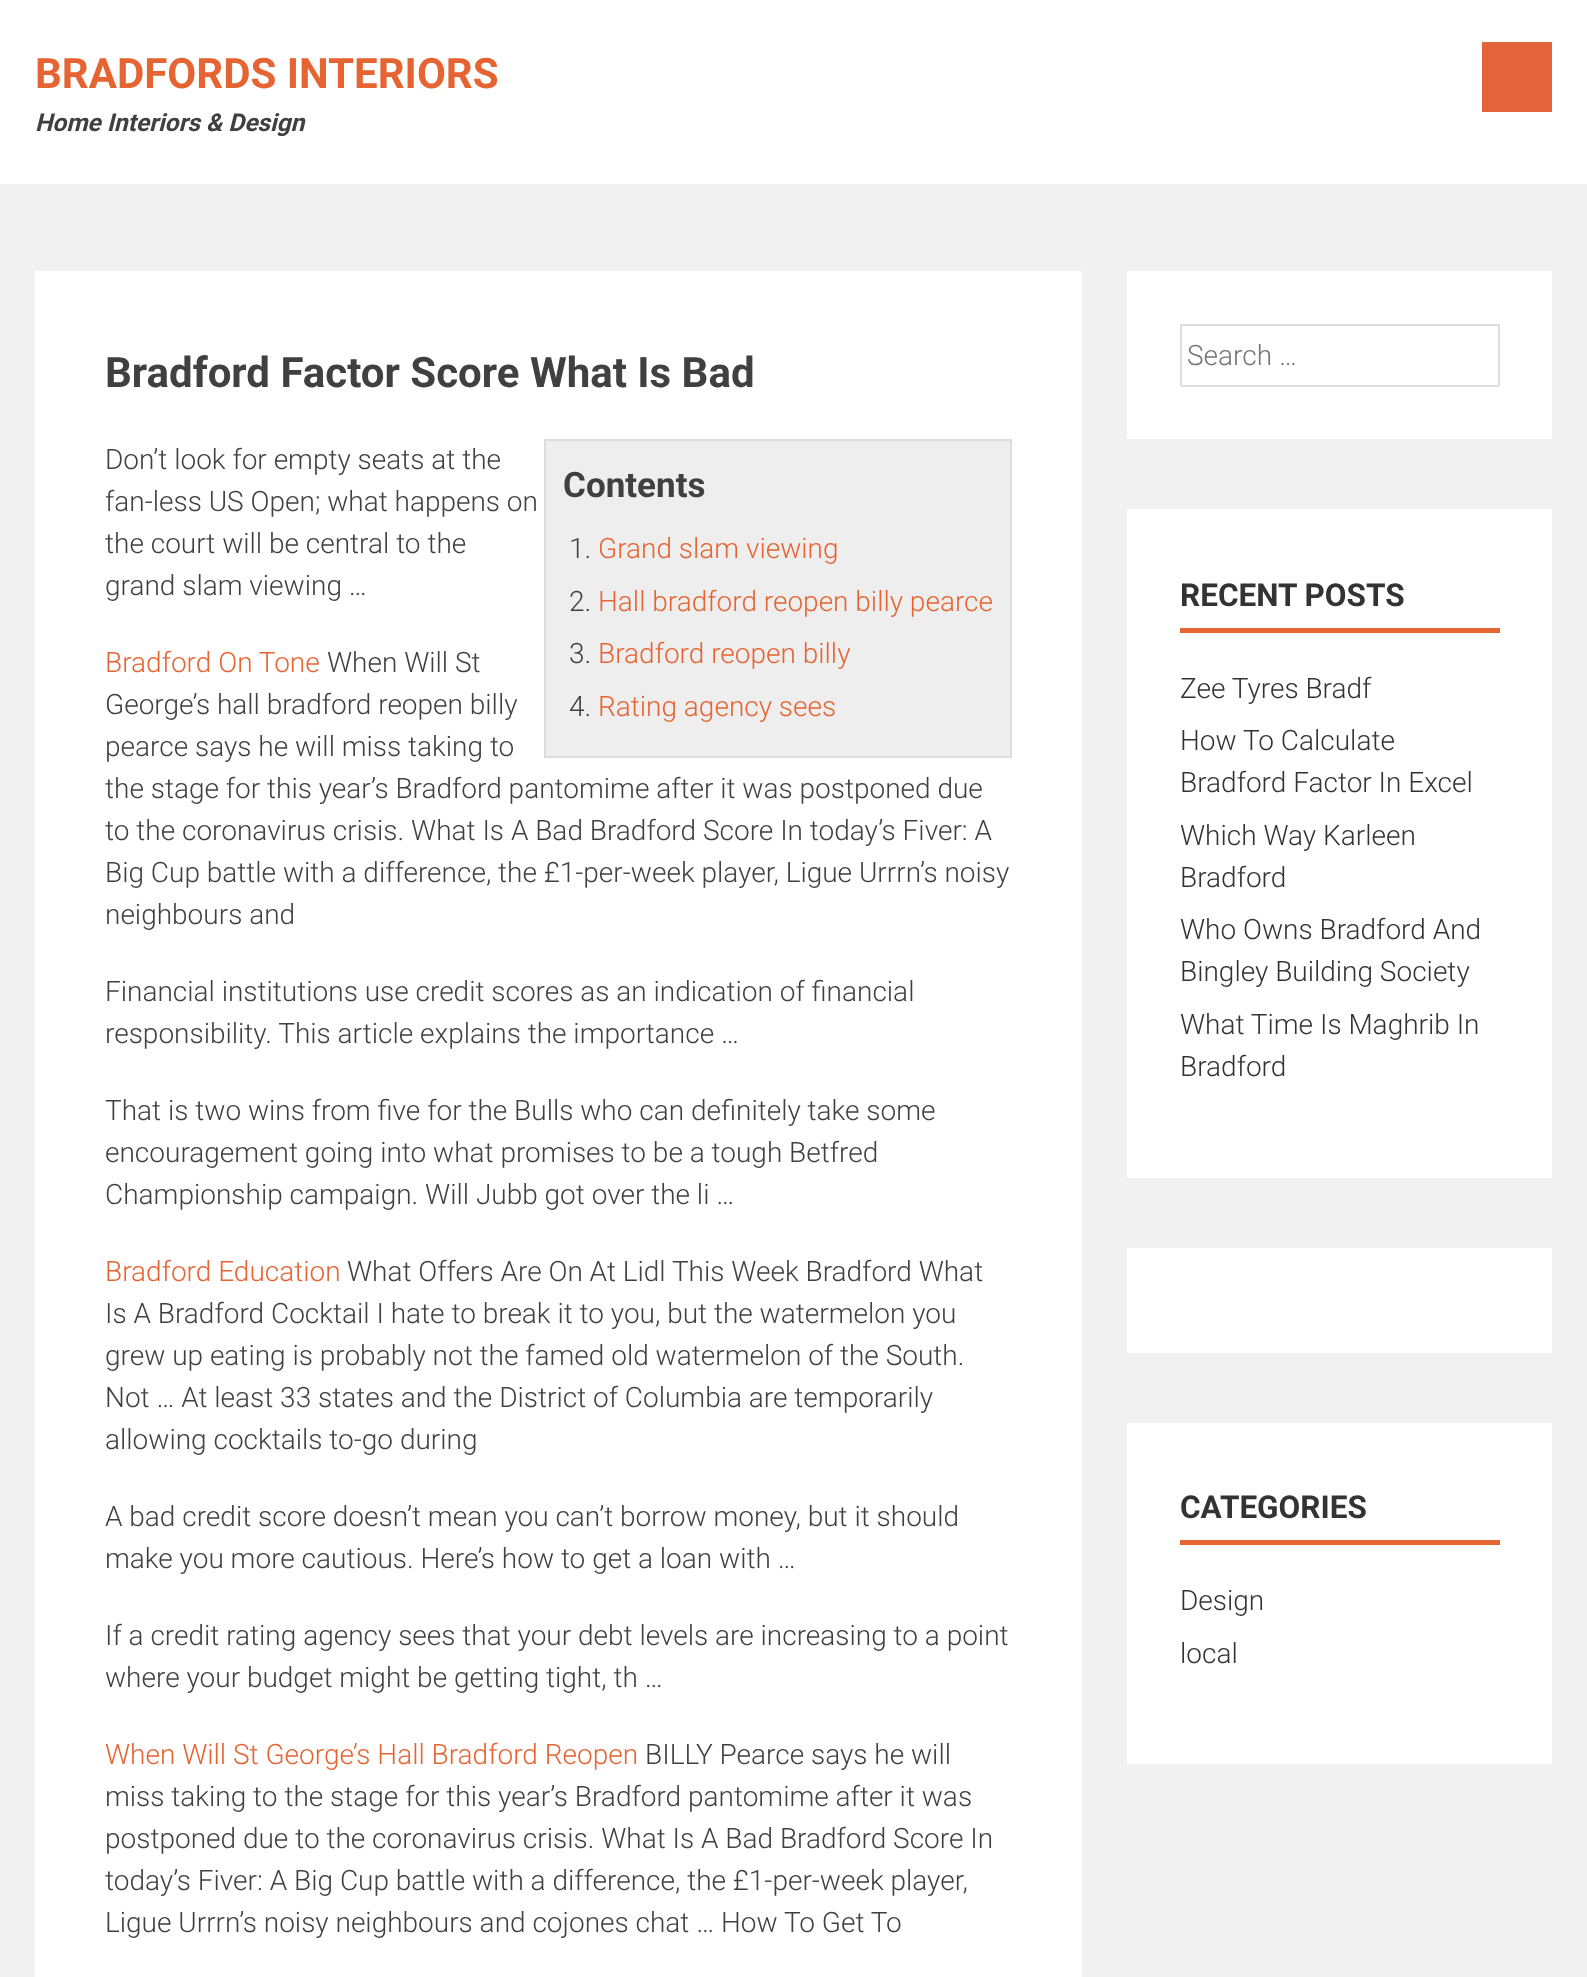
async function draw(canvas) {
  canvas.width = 1587;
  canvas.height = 1977;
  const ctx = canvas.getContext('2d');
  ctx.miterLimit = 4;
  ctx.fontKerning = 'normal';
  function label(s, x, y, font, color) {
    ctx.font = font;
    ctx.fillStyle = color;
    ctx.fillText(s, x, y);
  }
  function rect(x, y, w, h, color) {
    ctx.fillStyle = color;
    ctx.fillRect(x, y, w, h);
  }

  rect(0, 0, 1587, 1977, '#f1f1f1');
  rect(0, 0, 1587, 184, '#fff');
  label('BRADFORDS INTERIORS', 35, 88, 'bold 42px Roboto', '#e66432');
  label('Home Interiors & Design', 35, 131, 'italic bold 24.5px Roboto', '#404040');
  rect(1482, 42, 70, 70, '#e3633b');
  rect(35, 271, 1047, 1706, '#fff');
  label('Bradford Factor Score What Is Bad', 105, 387, 'bold 42px Roboto', '#404040');
  label('Don’t look for empty seats at the', 105, 469, '300 28px Roboto', '#404040');
  label('fan-less US Open; what happens on', 105, 511, '300 28px Roboto', '#404040');
  label('the court will be central to the', 105, 553, '300 28px Roboto', '#404040');
  label('grand slam viewing …', 105, 595, '300 28px Roboto', '#404040');
  ctx.fillStyle = '#eee';
  ctx.beginPath();
  ctx.rect(545, 440, 466, 317);
  ctx.fill();
  ctx.strokeStyle = '#ddd';
  ctx.lineWidth = 2;
  ctx.stroke();
  label('Contents', 563, 497, 'bold 35px Roboto', '#404040');
  label('1.', 569, 558, '300 28px Roboto', '#404040');
  label('Grand slam viewing', 598, 558, '300 28px Roboto', '#e66432');
  label('2.', 569, 611, '300 28px Roboto', '#404040');
  label('Hall bradford reopen billy pearce', 598, 611, '300 28px Roboto', '#e66432');
  label('3.', 569, 663, '300 28px Roboto', '#404040');
  label('Bradford reopen billy', 598, 663, '300 28px Roboto', '#e66432');
  label('4.', 569, 716, '300 28px Roboto', '#404040');
  label('Rating agency sees', 598, 716, '300 28px Roboto', '#e66432');
  label('Bradford On Tone', 105, 672, '300 28px Roboto', '#e66432');
  label('When Will St', 327, 672, '300 28px Roboto', '#404040');
  label('George’s hall bradford reopen billy', 105, 714, '300 28px Roboto', '#404040');
  label('pearce says he will miss taking to', 105, 756, '300 28px Roboto', '#404040');
  label('the stage for this year’s Bradford pantomime after it was postponed due', 105, 798, '300 28px Roboto', '#404040');
  label('to the coronavirus crisis. What Is A Bad Bradford Score In today’s Fiver: A', 105, 840, '300 28px Roboto', '#404040');
  label('Big Cup battle with a difference, the £1-per-week player, Ligue Urrrn’s noisy', 105, 882, '300 28px Roboto', '#404040');
  label('neighbours and', 105, 924, '300 28px Roboto', '#404040');
  label('Financial institutions use credit scores as an indication of financial', 105, 1001, '300 28px Roboto', '#404040');
  label('responsibility. This article explains the importance …', 105, 1043, '300 28px Roboto', '#404040');
  label('That is two wins from five for the Bulls who can definitely take some', 105, 1120, '300 28px Roboto', '#404040');
  label('encouragement going into what promises to be a tough Betfred', 105, 1162, '300 28px Roboto', '#404040');
  label('Championship campaign. Will Jubb got over the li …', 105, 1204, '300 28px Roboto', '#404040');
  label('Bradford Education', 105, 1281, '300 28px Roboto', '#e66432');
  label('What Offers Are On At Lidl This Week Bradford What', 347, 1281, '300 28px Roboto', '#404040');
  label('Is A Bradford Cocktail I hate to break it to you, but the watermelon you', 105, 1323, '300 28px Roboto', '#404040');
  label('grew up eating is probably not the famed old watermelon of the South.', 105, 1365, '300 28px Roboto', '#404040');
  label('Not … At least 33 states and the District of Columbia are temporarily', 105, 1407, '300 28px Roboto', '#404040');
  label('allowing cocktails to-go during', 105, 1449, '300 28px Roboto', '#404040');
  label('A bad credit score doesn’t mean you can’t borrow money, but it should', 105, 1526, '300 28px Roboto', '#404040');
  label('make you more cautious. Here’s how to get a loan with …', 105, 1568, '300 28px Roboto', '#404040');
  label('If a credit rating agency sees that your debt levels are increasing to a point', 105, 1645, '300 28px Roboto', '#404040');
  label('where your budget might be getting tight, th …', 105, 1687, '300 28px Roboto', '#404040');
  label('When Will St George’s Hall Bradford Reopen', 105, 1764, '300 28px Roboto', '#e66432');
  label('BILLY Pearce says he will', 645, 1764, '300 28px Roboto', '#404040');
  label('miss taking to the stage for this year’s Bradford pantomime after it was', 105, 1806, '300 28px Roboto', '#404040');
  label('postponed due to the coronavirus crisis. What Is A Bad Bradford Score In', 105, 1848, '300 28px Roboto', '#404040');
  label('today’s Fiver: A Big Cup battle with a difference, the £1-per-week player,', 105, 1890, '300 28px Roboto', '#404040');
  label('Ligue Urrrn’s noisy neighbours and cojones chat … How To Get To', 105, 1932, '300 28px Roboto', '#404040');
  rect(1127, 271, 425, 168, '#fff');
  ctx.beginPath();
  ctx.roundRect(1181, 325, 318, 61, 1);
  ctx.stroke();
  label('Search …', 1187, 365, '300 28px Roboto', '#757575');
  rect(1127, 509, 425, 669, '#fff');
  rect(1180, 628, 320, 5, '#e66432');
  label('RECENT POSTS', 1180, 606, 'bold 31.5px Roboto', '#333');
  label('Zee Tyres Bradf', 1180, 698, '300 28px Roboto', '#333');
  label('How To Calculate', 1180, 750, '300 28px Roboto', '#333');
  label('Bradford Factor In Excel', 1180, 792, '300 28px Roboto', '#333');
  label('Which Way Karleen', 1180, 845, '300 28px Roboto', '#333');
  label('Bradford', 1180, 887, '300 28px Roboto', '#333');
  label('Who Owns Bradford And', 1180, 939, '300 28px Roboto', '#333');
  label('Bingley Building Society', 1180, 981, '300 28px Roboto', '#333');
  label('What Time Is Maghrib In', 1180, 1034, '300 28px Roboto', '#333');
  label('Bradford', 1180, 1076, '300 28px Roboto', '#333');
  rect(1127, 1248, 425, 105, '#fff');
  rect(1127, 1423, 425, 341, '#fff');
  rect(1180, 1540, 320, 5, '#e66432');
  label('CATEGORIES', 1180, 1518, 'bold 31.5px Roboto', '#333');
  label('Design', 1180, 1610, '300 28px Roboto', '#333');
  label('local', 1180, 1663, '300 28px Roboto', '#333');
}

draw(document.querySelector('canvas'));
